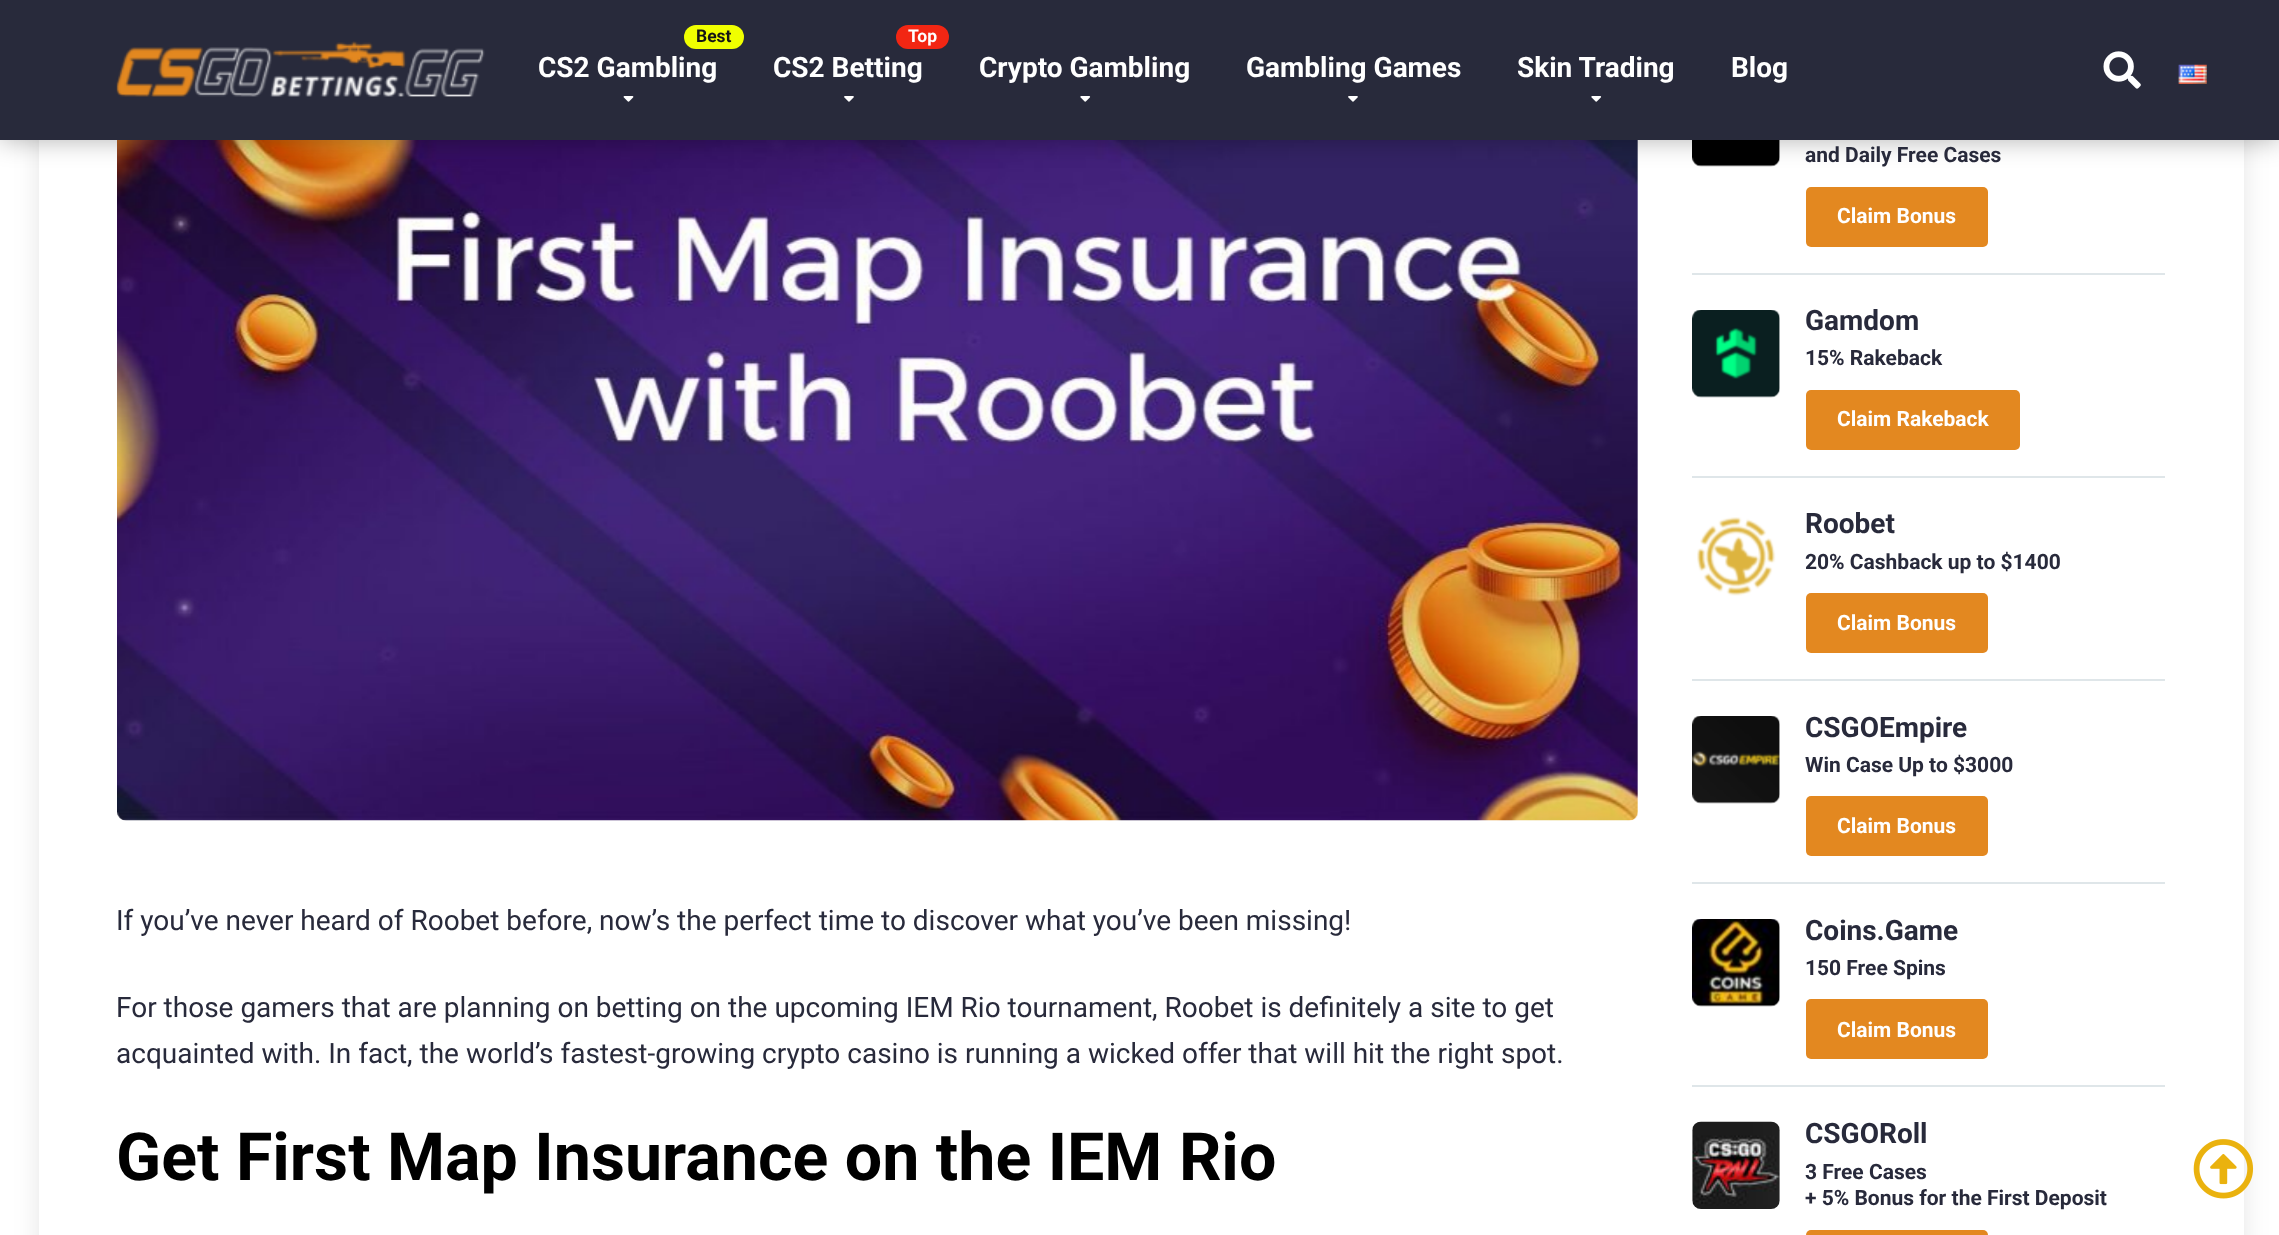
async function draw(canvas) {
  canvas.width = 2279;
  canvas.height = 1235;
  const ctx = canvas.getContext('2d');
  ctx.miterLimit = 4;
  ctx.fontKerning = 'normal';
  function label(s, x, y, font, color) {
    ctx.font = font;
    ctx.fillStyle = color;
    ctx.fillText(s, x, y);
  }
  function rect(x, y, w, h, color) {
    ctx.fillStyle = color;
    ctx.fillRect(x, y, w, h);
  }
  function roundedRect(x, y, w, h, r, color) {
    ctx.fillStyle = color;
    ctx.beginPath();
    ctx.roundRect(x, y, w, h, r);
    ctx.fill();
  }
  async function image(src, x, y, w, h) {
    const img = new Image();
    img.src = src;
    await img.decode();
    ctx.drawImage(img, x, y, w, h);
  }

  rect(0, 0, 2279, 1235, '#fff');
  ctx.fillStyle = '#0000001a';
  ctx.filter = 'blur(13px)';
  ctx.beginPath();
  ctx.rect(39, -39, 2205, 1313);
  ctx.fill();
  ctx.filter = 'none';
  rect(39, 140, 2205, 1095, '#fff');
  await image('assets/img7.png', 117, 140, 1521, 681);
  await image('assets/img8.png', 1692, 140, 88, 27);
  ctx.fillStyle = '#0000004d';
  ctx.filter = 'blur(13px)';
  ctx.beginPath();
  ctx.rect(0, 0, 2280, 140);
  ctx.fill();
  ctx.filter = 'none';
  rect(0, 0, 2279, 140, '#282a3b');
  await image('assets/img1.png', 116, 41, 369, 56);
  roundedRect(684, 25, 60, 24, 12, '#f0ff00');
  label('Best', 696, 42, 'bold 17.5px Roboto', '#151515');
  label('CS2 Gambling', 538, 77, 'bold 28px Roboto', '#fff');
  await image('assets/img2.png', 623, 96, 11, 6);
  roundedRect(896, 25, 53, 24, 12, '#f22613');
  label('Top', 908, 42, 'bold 17.5px Roboto', '#fff');
  label('CS2 Betting', 773, 77, 'bold 28px Roboto', '#fff');
  await image('assets/img3.png', 844, 96, 10, 6);
  label('Crypto Gambling', 979, 77, 'bold 28px Roboto', '#fff');
  await image('assets/img4.png', 1080, 96, 11, 6);
  label('Gambling Games', 1246, 77, 'bold 28px Roboto', '#fff');
  await image('assets/img3.png', 1348, 96, 10, 6);
  label('Skin Trading', 1517, 77, 'bold 28px Roboto', '#fff');
  await image('assets/img4.png', 1591, 96, 11, 6);
  label('Blog', 1731, 77, 'bold 28px Roboto', '#fff');
  await image('assets/img5.png', 2103, 51, 38, 38);
  await image('assets/img6.png', 2178, 64, 29, 20);
  label('If you’ve never heard of Roobet before, now’s the perfect time to discover what you’ve been missing!', 116, 930, '28px Roboto', '#282a3b');
  label('For those gamers that are planning on betting on the upcoming IEM Rio tournament, Roobet is definitely a site to get', 116, 1017, '28px Roboto', '#282a3b');
  label('acquainted with. In fact, the world’s fastest-growing crypto casino is running a wicked offer that will hit the right spot.', 116, 1063, '28px Roboto', '#282a3b');
  label('Get First Map Insurance on the IEM Rio', 116, 1180, 'bold 66.3px Roboto', '#000');
  rect(1692, 273, 473, 2, '#dfe6e9');
  label('and Daily Free Cases', 1805, 162, 'bold 21px Roboto', '#282a3b');
  roundedRect(1806, 187, 182, 60, 5, '#e38820');
  label('Claim Bonus', 1837, 223, 'bold 21px Roboto', '#fff');
  rect(1692, 476, 473, 2, '#dfe6e9');
  await image('assets/img9.png', 1692, 310, 88, 88);
  label('Gamdom', 1805, 330, 'bold 28px Roboto', '#282a3b');
  label('15% Rakeback', 1805, 365, 'bold 21px Roboto', '#282a3b');
  roundedRect(1806, 390, 214, 60, 5, '#e38820');
  label('Claim Rakeback', 1837, 426, 'bold 21px Roboto', '#fff');
  rect(1692, 679, 473, 2, '#dfe6e9');
  await image('assets/img10.png', 1697, 517, 79, 79);
  label('Roobet', 1805, 533, 'bold 28px Roboto', '#282a3b');
  label('20% Cashback up to $1400', 1805, 569, 'bold 21px Roboto', '#282a3b');
  roundedRect(1806, 593, 182, 60, 5, '#e38820');
  label('Claim Bonus', 1837, 630, 'bold 21px Roboto', '#fff');
  rect(1692, 882, 473, 2, '#dfe6e9');
  await image('assets/img11.png', 1692, 716, 88, 88);
  label('CSGOEmpire', 1805, 737, 'bold 28px Roboto', '#282a3b');
  label('Win Case Up to $3000', 1805, 772, 'bold 21px Roboto', '#282a3b');
  roundedRect(1806, 796, 182, 60, 5, '#e38820');
  label('Claim Bonus', 1837, 833, 'bold 21px Roboto', '#fff');
  rect(1692, 1085, 473, 2, '#dfe6e9');
  await image('assets/img12.png', 1692, 919, 88, 88);
  label('Coins.Game', 1805, 940, 'bold 28px Roboto', '#282a3b');
  label('150 Free Spins', 1805, 975, 'bold 21px Roboto', '#282a3b');
  roundedRect(1806, 999, 182, 60, 5, '#e38820');
  label('Claim Bonus', 1837, 1037, 'bold 21px Roboto', '#fff');
  await image('assets/img13.png', 1692, 1121, 88, 88);
  label('CSGORoll', 1805, 1143, 'bold 28px Roboto', '#282a3b');
  label('3 Free Cases', 1805, 1179, 'bold 21px Roboto', '#282a3b');
  label('+ 5% Bonus for the First Deposit', 1805, 1205, 'bold 21px Roboto', '#282a3b');
  roundedRect(1806, 1230, 182, 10, 5, '#e38820');
  await image('assets/img14.png', 2193, 1139, 61, 60);
}

draw(document.querySelector('canvas'));
